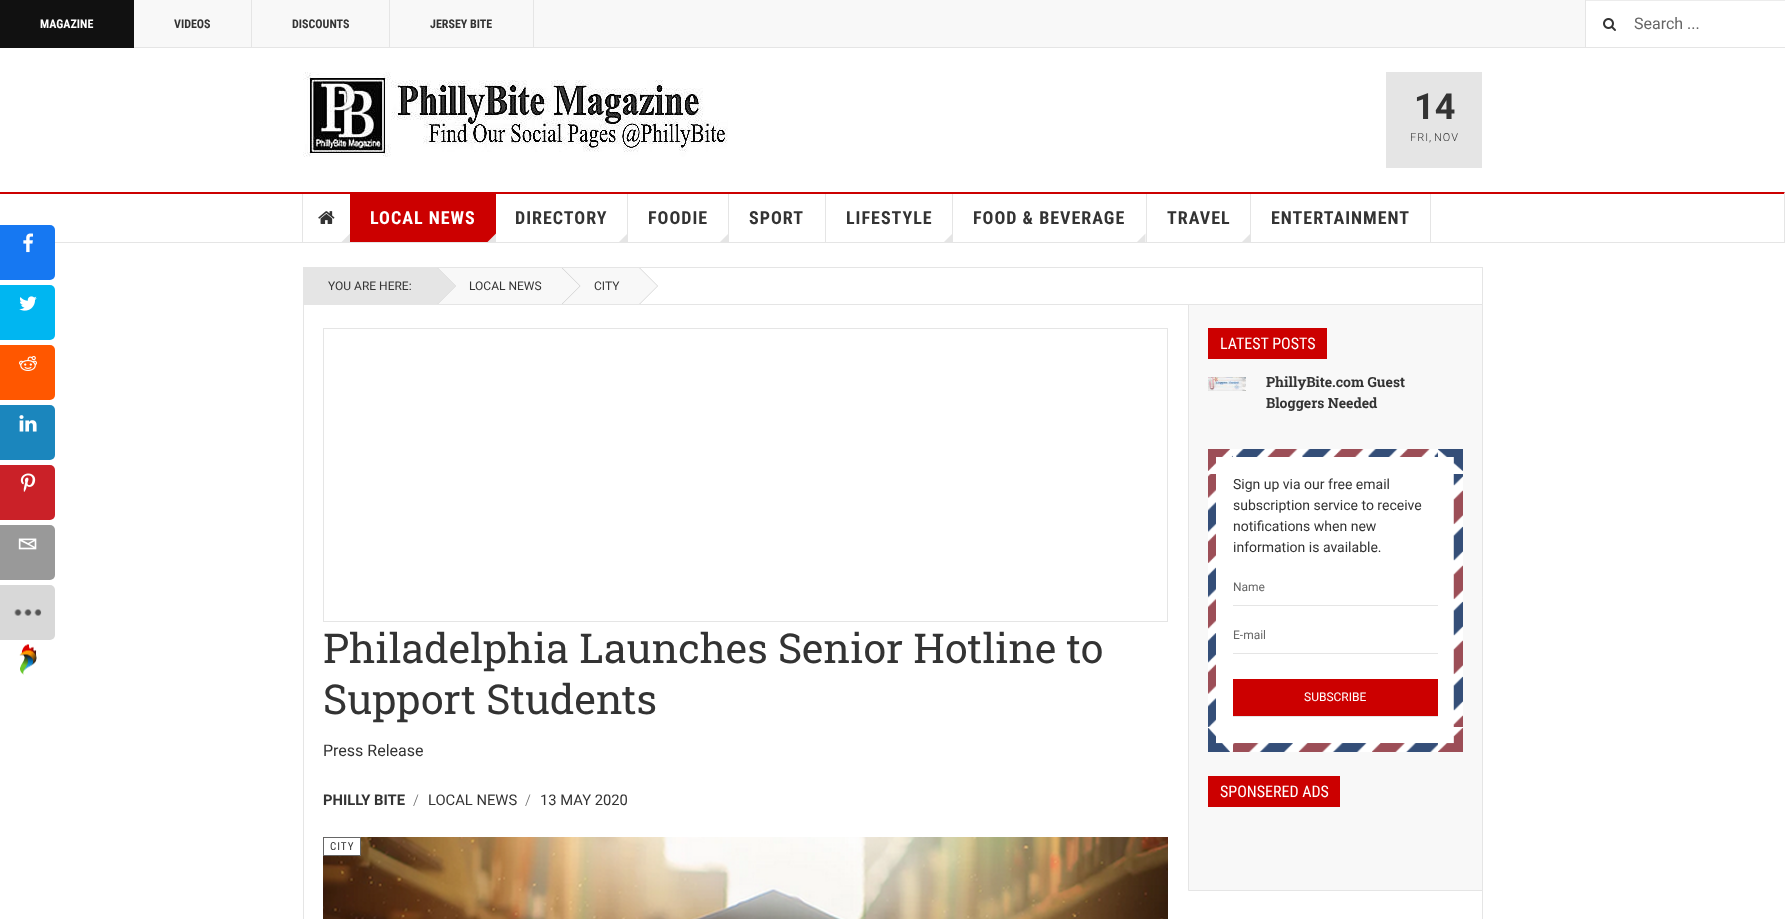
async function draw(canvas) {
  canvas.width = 1785;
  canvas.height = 919;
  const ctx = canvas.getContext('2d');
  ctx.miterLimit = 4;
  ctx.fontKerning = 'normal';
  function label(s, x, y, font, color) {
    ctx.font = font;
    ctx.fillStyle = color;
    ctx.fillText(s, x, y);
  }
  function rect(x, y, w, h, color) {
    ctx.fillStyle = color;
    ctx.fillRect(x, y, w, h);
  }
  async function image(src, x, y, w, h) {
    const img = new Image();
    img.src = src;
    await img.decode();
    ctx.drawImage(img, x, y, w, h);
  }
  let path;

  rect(0, 0, 1785, 919, '#fff');
  ctx.fillStyle = '#1678f2';
  ctx.beginPath();
  ctx.roundRect(0, 225, 55, 55, [0, 5, 5, 0]);
  ctx.fill();
  await image('assets/img1.png', 23, 233, 10, 20);
  ctx.fillStyle = '#00b6f1';
  ctx.beginPath();
  ctx.roundRect(0, 285, 55, 55, [0, 5, 5, 0]);
  ctx.fill();
  await image('assets/img2.png', 19, 296, 18, 15);
  ctx.fillStyle = '#ff5700';
  ctx.beginPath();
  ctx.roundRect(0, 345, 55, 55, [0, 5, 5, 0]);
  ctx.fill();
  await image('assets/img3.png', 19, 356, 18, 15);
  ctx.fillStyle = '#1b86bd';
  ctx.beginPath();
  ctx.roundRect(0, 405, 55, 55, [0, 5, 5, 0]);
  ctx.fill();
  await image('assets/img4.png', 19, 415, 18, 17);
  ctx.fillStyle = '#ca2128';
  ctx.beginPath();
  ctx.roundRect(0, 465, 55, 55, [0, 5, 5, 0]);
  ctx.fill();
  await image('assets/img5.png', 20, 473, 16, 19);
  ctx.fillStyle = '#999';
  ctx.beginPath();
  ctx.roundRect(0, 525, 55, 55, [0, 5, 5, 0]);
  ctx.fill();
  await image('assets/img6.png', 18, 538, 19, 12);
  ctx.fillStyle = '#d8d8d8';
  ctx.beginPath();
  ctx.roundRect(0, 585, 55, 55, [0, 5, 5, 0]);
  ctx.fill();
  await image('assets/img7.png', 14, 609, 28, 7);
  await image('assets/img8.png', 19, 644, 18, 31);
  rect(134, 0, 1451, 47, '#f8f8f8');
  rect(134, 47, 1651, 1, '#e5e5e5');
  rect(0, 0, 134, 48, '#111');
  label('MAGAZINE', 40, 28, 'bold 12px Roboto Condensed', '#fff');
  rect(251, 0, 1, 48, '#e5e5e5');
  label('VIDEOS', 174, 28, 'bold 12px Roboto Condensed', '#333');
  rect(389, 0, 1, 48, '#e5e5e5');
  label('DISCOUNTS', 292, 28, 'bold 12px Roboto Condensed', '#333');
  rect(533, 0, 1, 48, '#e5e5e5');
  label('JERSEY BITE', 430, 28, 'bold 12px Roboto Condensed', '#333');
  await image('assets/img9.png', 1603, 18, 13, 13);
  rect(1586, 0, 199, 1, '#ececec');
  rect(1585, 0, 1, 47, '#e5e5e5');
  label('Search ...', 1634, 29, '16px Roboto', '#666');
  await image('assets/img10.png', 303, 72, 425, 85);
  rect(1386, 72, 96, 96, '#e5e5e5');
  label('14', 1414, 119, 'bold 36px Roboto', '#333');
  ctx.letterSpacing = '1px';
  label('FRI', 1410, 141, '300 11px Roboto', '#333');
  ctx.letterSpacing = '0px';
  label(',', 1429, 141, '300 11px Roboto', '#333');
  ctx.letterSpacing = '1px';
  label('NOV', 1434, 141, '300 11px Roboto', '#333');
  ctx.fillStyle = '#c00';
  path = new Path2D('M0 192H1785L1784 194H0Z');
  ctx.fill(path);
  ctx.fillStyle = '#e5e5e5';
  path = new Path2D('M1785 192V243L1784 242V194Z');
  ctx.fill(path);
  rect(55, 242, 1730, 1, '#e5e5e5');
  rect(302, 194, 1, 48, '#e5e5e5');
  await image('assets/img11.png', 318, 211, 17, 13);
  path = new Path2D('M341.5 242L350 233.5V242Z');
  ctx.fill(path);
  rect(350, 194, 146, 48, '#c00');
  label('LOCAL NEWS', 370, 224, 'bold 18px Roboto Condensed', '#fff');
  ctx.fillStyle = '#e5e5e5';
  path = new Path2D('M487.5 242L496 233.5V242Z');
  ctx.fill(path);
  rect(627, 194, 1, 48, '#e5e5e5');
  label('DIRECTORY', 515, 224, 'bold 18px Roboto Condensed', '#333');
  ctx.fillStyle = '#e5e5e5';
  path = new Path2D('M619 242L627.5 233.5V242Z');
  ctx.fill(path);
  rect(728, 194, 1, 48, '#e5e5e5');
  label('FOODIE', 648, 224, 'bold 18px Roboto Condensed', '#333');
  ctx.fillStyle = '#e5e5e5';
  path = new Path2D('M720 242L728.5 233.5V242Z');
  ctx.fill(path);
  rect(825, 194, 1, 48, '#e5e5e5');
  label('SPORT', 749, 224, 'bold 18px Roboto Condensed', '#333');
  rect(952, 194, 1, 48, '#e5e5e5');
  label('LIFESTYLE', 846, 224, 'bold 18px Roboto Condensed', '#333');
  ctx.fillStyle = '#e5e5e5';
  path = new Path2D('M944 242L952.5 233.5V242Z');
  ctx.fill(path);
  rect(1146, 194, 1, 48, '#e5e5e5');
  label('FOOD & BEVERAGE', 973, 224, 'bold 18px Roboto Condensed', '#333');
  ctx.fillStyle = '#e5e5e5';
  path = new Path2D('M1137 242L1145.5 233.5V242Z');
  ctx.fill(path);
  rect(1250, 194, 1, 48, '#e5e5e5');
  label('TRAVEL', 1167, 224, 'bold 18px Roboto Condensed', '#333');
  ctx.fillStyle = '#e5e5e5';
  path = new Path2D('M1242 242L1250.5 233.5V242Z');
  ctx.fill(path);
  rect(1430, 194, 1, 48, '#e5e5e5');
  label('ENTERTAINMENT', 1271, 224, 'bold 18px Roboto Condensed', '#333');
  rect(303, 267, 1180, 1, '#e5e5e5');
  rect(1482, 267, 1, 37, '#e5e5e5');
  rect(303, 267, 1, 37, '#e5e5e5');
  rect(304, 268, 134, 36, '#e5e5e5');
  ctx.letterSpacing = '0px';
  label('YOU ARE HERE:', 328, 290, '12px Roboto', '#333');
  rect(438, 268, 124, 36, '#f8f8f8');
  ctx.fillStyle = '#ccc';
  path = new Path2D('M438 268L437.5 268.5L455 286L437.5 303.5L438 304L456 286Z');
  ctx.fill(path);
  ctx.fillStyle = '#e5e5e5';
  path = new Path2D('M437 268L455 286L437 304L419 286Z');
  ctx.fill(path);
  rect(562, 268, 1, 36, '#e5e5e5');
  label('LOCAL NEWS', 469, 290, '12px Roboto', '#333');
  rect(563, 268, 76, 36, '#f8f8f8');
  ctx.fillStyle = '#ccc';
  path = new Path2D('M562.5 268L562 268.5L579.5 286L562 303.5L562.5 304L580.5 286Z');
  ctx.fill(path);
  ctx.fillStyle = '#f8f8f8';
  path = new Path2D('M561.5 268L579.5 286L561.5 304L543.5 286Z');
  ctx.fill(path);
  rect(639, 268, 1, 36, '#e5e5e5');
  label('CITY', 594, 290, '12px Roboto', '#333');
  ctx.fillStyle = '#ccc';
  path = new Path2D('M640 268L639.5 268.5L657 286L639.5 303.5L640 304L658 286Z');
  ctx.fill(path);
  ctx.fillStyle = '#f8f8f8';
  path = new Path2D('M639 268L657 286L639 304L621 286Z');
  ctx.fill(path);
  ctx.strokeStyle = '#e5e5e5';
  ctx.strokeRect(303.5, 304.5, 1179, 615);
  ctx.strokeRect(323.5, 328.5, 844, 293);
  label('Philadelphia Launches Senior Hotline to', 323, 663, '41.1px Roboto Slab', '#333');
  label('Support Students', 323, 714, '41.1px Roboto Slab', '#333');
  label('Press Release', 323, 756, '16px Roboto', '#333');
  label('PHILLY BITE', 323, 805, 'bold 14.75px Roboto', '#333');
  label('/', 413, 805, '300 14.75px Roboto', '#666');
  label('LOCAL NEWS', 428, 805, '14.75px Roboto', '#333');
  label('/', 525, 805, '300 14.75px Roboto', '#666');
  label('13 MAY 2020', 540, 805, '14.75px Roboto', '#333');
  await image('assets/img12.png', 323, 837, 845, 82);
  ctx.fillStyle = '#fff';
  ctx.beginPath();
  ctx.rect(323.5, 837.5, 37, 18);
  ctx.fill();
  ctx.strokeStyle = '#666';
  ctx.stroke();
  ctx.letterSpacing = '1px';
  label('CITY', 330, 850, '11px Roboto Condensed', '#333');
  ctx.fillStyle = '#f8f8f8';
  ctx.beginPath();
  ctx.rect(1188.5, 304.5, 294, 586);
  ctx.fill();
  ctx.strokeStyle = '#e5e5e5';
  ctx.stroke();
  rect(1208, 328, 119, 31, '#c00');
  ctx.letterSpacing = '0px';
  label('LATEST POSTS', 1220, 349, '16px Roboto Condensed', '#fff');
  await image('assets/img13.png', 1208, 377, 38, 14);
  label('PhillyBite.com Guest', 1266, 387, 'bold 14px Roboto Slab', '#333');
  label('Bloggers Needed', 1266, 408, 'bold 14px Roboto Slab', '#333');
  rect(1208, 449, 255, 303, '#fff');
  await image('assets/img14.png', 1208, 449, 255, 303);
  label('Sign up via our free email', 1233, 489, '14px Roboto', '#333');
  label('subscription service to receive', 1233, 510, '14px Roboto', '#333');
  label('notifications when new', 1233, 531, '14px Roboto', '#333');
  label('information is available.', 1233, 552, '14px Roboto', '#333');
  rect(1233, 605, 205, 1, '#e5e5e5');
  label('Name', 1233, 591, '12px Roboto', '#666');
  rect(1233, 653, 205, 1, '#e5e5e5');
  label('E-mail', 1233, 639, '12px Roboto', '#666');
  rect(1233, 679, 205, 37, '#c00');
  rect(1233, 716, 205, 1, '#e5e5e5');
  label('SUBSCRIBE', 1304, 701, '12px Roboto', '#fff');
  rect(1208, 776, 132, 31, '#c00');
  label('SPONSERED ADS', 1220, 797, '16px Roboto Condensed', '#fff');
}

draw(document.querySelector('canvas'));
